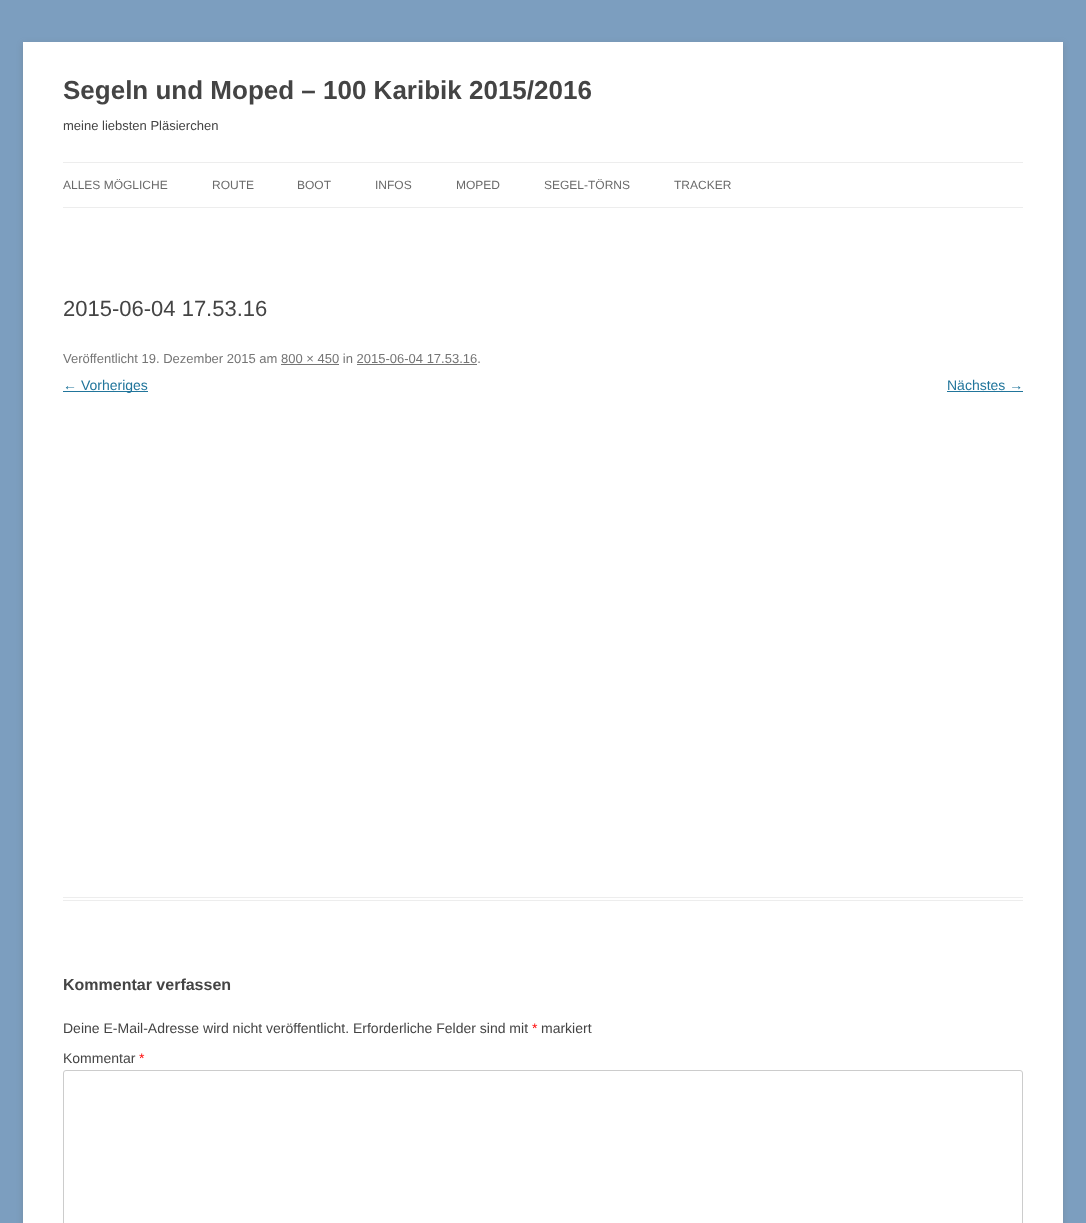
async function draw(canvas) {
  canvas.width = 1086;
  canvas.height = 1223;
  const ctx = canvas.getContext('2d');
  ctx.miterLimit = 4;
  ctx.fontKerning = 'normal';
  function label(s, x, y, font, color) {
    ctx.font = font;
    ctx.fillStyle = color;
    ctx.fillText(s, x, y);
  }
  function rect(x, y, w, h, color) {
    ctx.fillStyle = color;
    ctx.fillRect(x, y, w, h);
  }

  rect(0, 0, 1086, 1223, '#7c9ebf');
  ctx.fillStyle = '#6464644d';
  ctx.filter = 'blur(3px)';
  ctx.beginPath();
  ctx.rect(23, 44, 1040, 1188);
  ctx.fill();
  ctx.filter = 'none';
  rect(23, 42, 1040, 1181, '#fff');
  label('Segeln und Moped – 100 Karibik 2015/2016', 63, 99, 'bold 26px Liberation Sans', '#444');
  label('meine liebsten Pläsierchen', 63, 130, '13px Liberation Sans', '#444');
  rect(63, 162, 960, 1, '#ededed');
  rect(63, 207, 960, 1, '#ededed');
  label('ALLES MÖGLICHE', 63, 189, '12px Liberation Sans', '#6a6a6a');
  label('ROUTE', 212, 189, '12px Liberation Sans', '#6a6a6a');
  label('BOOT', 297, 189, '12px Liberation Sans', '#6a6a6a');
  label('INFOS', 375, 189, '12px Liberation Sans', '#6a6a6a');
  label('MOPED', 456, 189, '12px Liberation Sans', '#6a6a6a');
  label('SEGEL-TÖRNS', 544, 189, '12px Liberation Sans', '#6a6a6a');
  label('TRACKER', 674, 189, '12px Liberation Sans', '#6a6a6a');
  rect(63, 897, 960, 1, '#ededed');
  rect(63, 900, 960, 1, '#ededed');
  label('2015-06-04 17.53.16', 63, 316, '22px Liberation Sans', '#444');
  label('Veröffentlicht 19. Dezember 2015 am 800 × 450 in 2015-06-04 17.53.16.', 63, 363, '13px Liberation Sans', '#757575');
  rect(281, 364, 58, 1, '#757575');
  rect(357, 364, 120, 1, '#757575');
  rect(63, 391, 85, 1, '#21759b');
  label('← Vorheriges', 63, 390, '14px Liberation Sans', '#21759b');
  label('Nächstes →', 947, 390, '14px Liberation Sans', '#21759b');
  rect(947, 391, 76, 1, '#21759b');
  label('Kommentar verfassen', 63, 990, 'bold 16px Liberation Sans', '#444');
  label('Deine E-Mail-Adresse wird nicht veröffentlicht. Erforderliche Felder sind mit', 63, 1033, '14px Liberation Sans', '#444');
  label('*', 532, 1033, '14px Liberation Sans', '#f00');
  label('markiert', 541, 1033, '14px Liberation Sans', '#444');
  label('Kommentar', 63, 1063, '14px Liberation Sans', '#444');
  label('*', 139, 1063, '14px Liberation Sans', '#f00');
  ctx.beginPath();
  ctx.roundRect(63.5, 1070.5, 959, 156, 2.5);
  ctx.strokeStyle = '#ccc';
  ctx.stroke();
}

draw(document.querySelector('canvas'));
